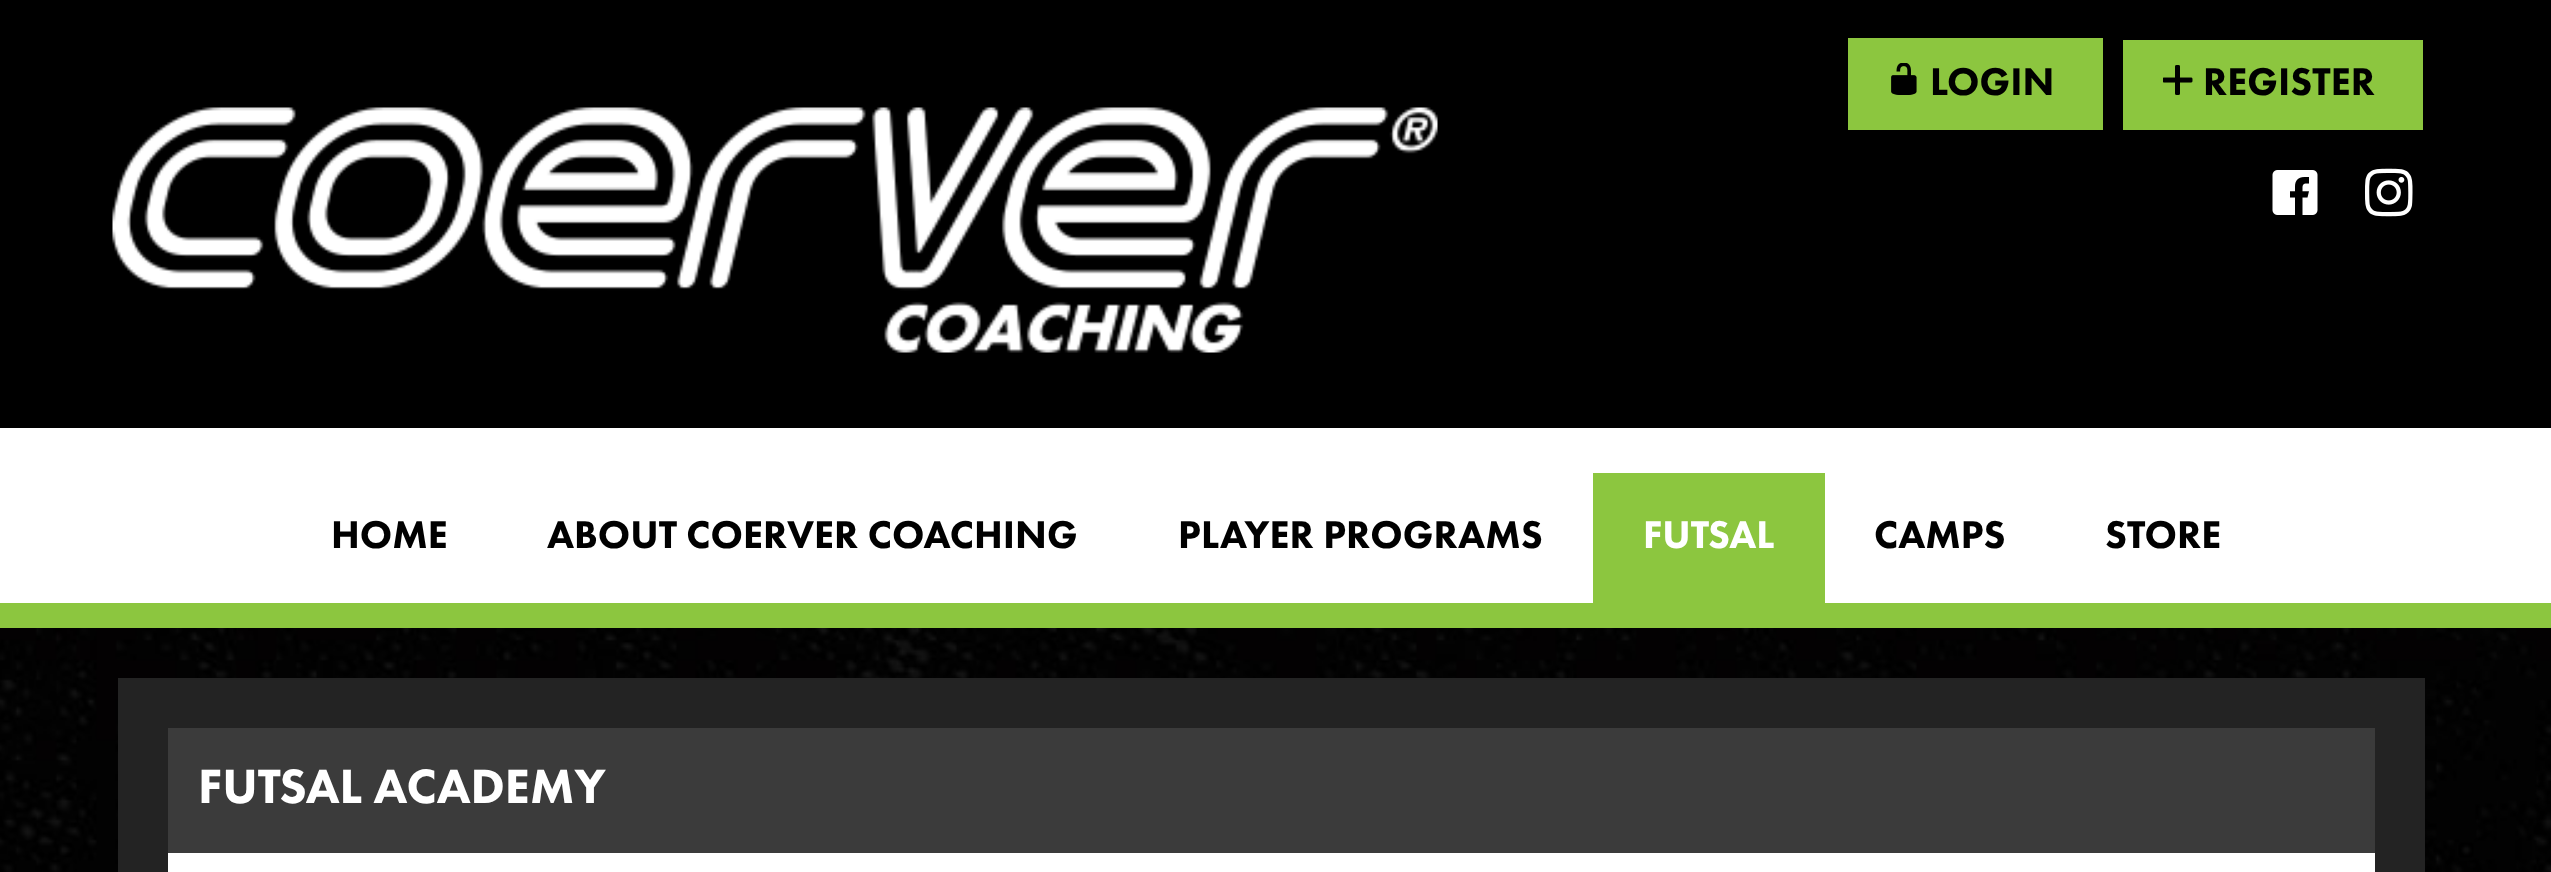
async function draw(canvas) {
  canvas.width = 2551;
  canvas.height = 872;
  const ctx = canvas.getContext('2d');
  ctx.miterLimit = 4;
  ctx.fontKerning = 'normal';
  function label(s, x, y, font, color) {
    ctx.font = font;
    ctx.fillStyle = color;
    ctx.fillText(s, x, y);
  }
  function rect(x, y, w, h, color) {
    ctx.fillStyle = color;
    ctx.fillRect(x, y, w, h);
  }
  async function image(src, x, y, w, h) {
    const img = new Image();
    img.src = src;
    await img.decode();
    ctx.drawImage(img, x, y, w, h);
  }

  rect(0, 0, 2551, 872, '#fff');
  await image('assets/img1.png', 0, 628, 2551, 244);
  rect(0, 0, 2551, 428, '#000');
  rect(1848, 38, 255, 92, '#8cc63f');
  await image('assets/img2.png', 1891, 63, 26, 32);
  label('LOGIN', 1930, 95, '900 40px Futura PT', '#000');
  rect(2123, 40, 300, 90, '#8cc63f');
  await image('assets/img3.png', 2163, 65, 30, 30);
  label('REGISTER', 2203, 95, '900 40px Futura PT', '#000');
  await image('assets/img4.png', 2272, 170, 46, 45);
  await image('assets/img5.png', 2365, 168, 48, 49);
  await image('assets/img6.png', 112, 107, 1326, 246);
  rect(0, 603, 2551, 25, '#8cc63f');
  label('HOME', 331, 548, '900 40px Futura PT', '#000');
  label('ABOUT COERVER COACHING', 547, 548, '900 40px Futura PT', '#000');
  label('PLAYER PROGRAMS', 1178, 548, '900 40px Futura PT', '#000');
  rect(1593, 473, 232, 130, '#8cc63f');
  label('FUTSAL', 1643, 548, '900 40px Futura PT', '#fff');
  label('CAMPS', 1874, 548, '900 40px Futura PT', '#000');
  label('STORE', 2105, 548, '900 40px Futura PT', '#000');
  rect(118, 678, 2307, 194, '#232323');
  rect(168, 728, 2207, 125, '#3b3b3b');
  label('FUTSAL ACADEMY', 198, 803, '900 50px Futura PT', '#fff');
  rect(168, 853, 2207, 19, '#fff');
}

draw(document.querySelector('canvas'));
